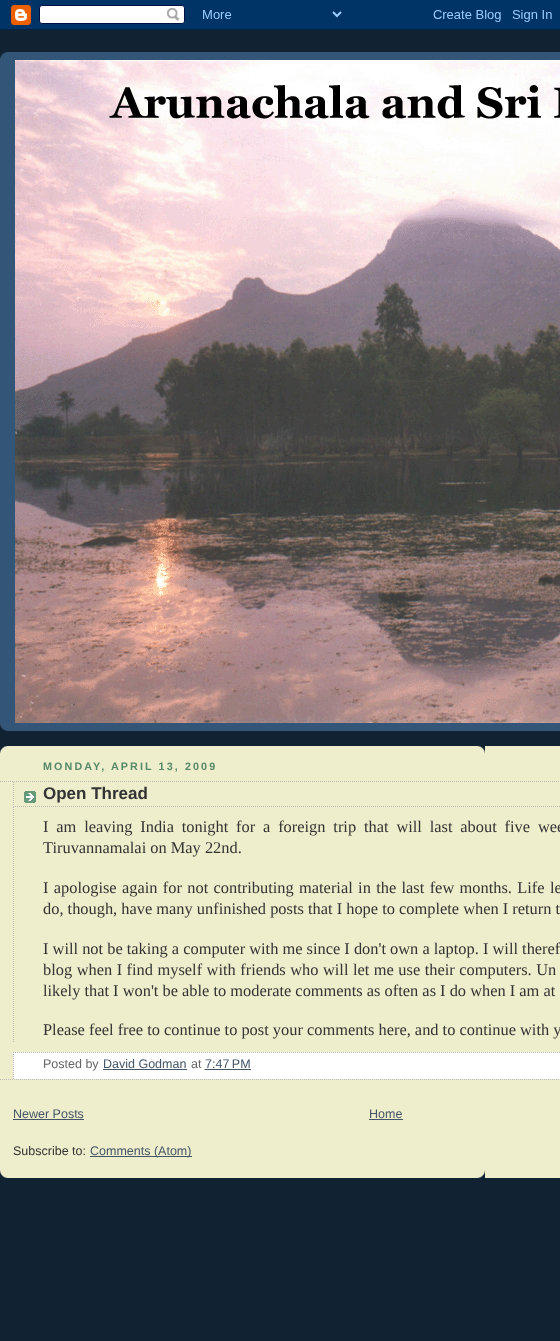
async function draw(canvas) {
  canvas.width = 560;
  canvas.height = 1341;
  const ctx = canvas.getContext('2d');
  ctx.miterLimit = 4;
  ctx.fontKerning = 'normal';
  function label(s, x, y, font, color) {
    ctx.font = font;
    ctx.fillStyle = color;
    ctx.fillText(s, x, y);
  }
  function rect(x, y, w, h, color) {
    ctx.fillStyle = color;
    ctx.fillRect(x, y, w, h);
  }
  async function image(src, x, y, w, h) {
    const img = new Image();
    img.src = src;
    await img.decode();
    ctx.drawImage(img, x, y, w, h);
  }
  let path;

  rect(0, 0, 560, 1341, '#123');
  await image('assets/img1.png', 0, 0, 560, 30);
  rect(0, 52, 560, 679, '#357');
  await image('assets/img2.png', 0, 52, 7, 7);
  await image('assets/img3.png', 0, 724, 7, 7);
  await image('assets/img4.png', 15, 60, 545, 663);
  rect(0, 746, 560, 432, '#eec');
  await image('assets/img5.png', 0, 1170, 485, 8);
  await image('assets/img6.png', 0, 746, 485, 8);
  ctx.letterSpacing = '2.1px';
  label('MONDAY, APRIL 13, 2009', 43, 770, 'bold 10.75px Liberation Sans', '#586');
  path = new Path2D('M0 781.5H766');
  ctx.strokeStyle = '#bbb';
  ctx.setLineDash([1, 1]);
  ctx.stroke(path);
  path = new Path2D('M0 1079.5H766');
  ctx.stroke(path);
  await image('assets/img7.png', 24, 791, 12, 12);
  path = new Path2D('M13 806.5H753');
  ctx.stroke(path);
  path = new Path2D('M13.5 782V807');
  ctx.stroke(path);
  ctx.letterSpacing = '0px';
  label('Open Thread', 43, 799, 'bold 17px Liberation Sans', '#333');
  path = new Path2D('M13.5 807V1042');
  ctx.stroke(path);
  ctx.wordSpacing = '3.75px';
  label('I am leaving India tonight for a foreign trip that will last about five wee', 43, 832, '16.4px Liberation Serif', '#333');
  ctx.wordSpacing = '0px';
  label('Tiruvannamalai on May 22nd.', 43, 853, '16.4px Liberation Serif', '#333');
  ctx.wordSpacing = '1.25px';
  label('I apologise again for not contributing material in the last few months. Life le', 43, 893, '16.4px Liberation Serif', '#333');
  ctx.wordSpacing = '0px';
  label('do, though, have many unfinished posts that I hope to complete when I return t', 43, 914, '16.4px Liberation Serif', '#333');
  label('I will not be taking a computer with me since I don\'t own a laptop. I will theref', 43, 954, '16.4px Liberation Serif', '#333');
  ctx.wordSpacing = '0.4px';
  label('blog when I find myself with friends who will let me use their computers. Un', 43, 975, '16.4px Liberation Serif', '#333');
  ctx.wordSpacing = '0px';
  label('likely that I won\'t be able to moderate comments as often as I do when I am at', 43, 996, '16.4px Liberation Serif', '#333');
  label('Please feel free to continue to post your comments here, and to continue with y', 43, 1035, '16.4px Liberation Serif', '#333');
  rect(13, 1052, 547, 27, '#fff');
  path = new Path2D('M13 1052.5H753');
  ctx.stroke(path);
  path = new Path2D('M13.5 1052V1079');
  ctx.stroke(path);
  label('Posted by', 43, 1068, '12.5px Liberation Sans', '#666');
  label('David Godman', 103, 1068, '12.5px Liberation Sans', '#456');
  rect(103, 1069, 84, 1, '#456');
  label('at', 191, 1068, '12.5px Liberation Sans', '#666');
  label('7:47 PM', 205, 1068, '12.5px Liberation Sans', '#456');
  path = new Path2D('M204.5 1069.5H250.5');
  ctx.strokeStyle = '#456';
  ctx.stroke(path);
  rect(205, 1069, 46, 1, '#456');
  label('Newer Posts', 13, 1118, '12.5px Liberation Sans', '#456');
  rect(13, 1119, 71, 1, '#456');
  label('Home', 369, 1118, '12.5px Liberation Sans', '#456');
  rect(369, 1119, 34, 1, '#456');
  label('Subscribe to:', 13, 1155, '12.5px Liberation Sans', '#333');
  rect(90, 1156, 102, 1, '#456');
  label('Comments (Atom)', 90, 1155, '12.5px Liberation Sans', '#456');
}

draw(document.querySelector('canvas'));
